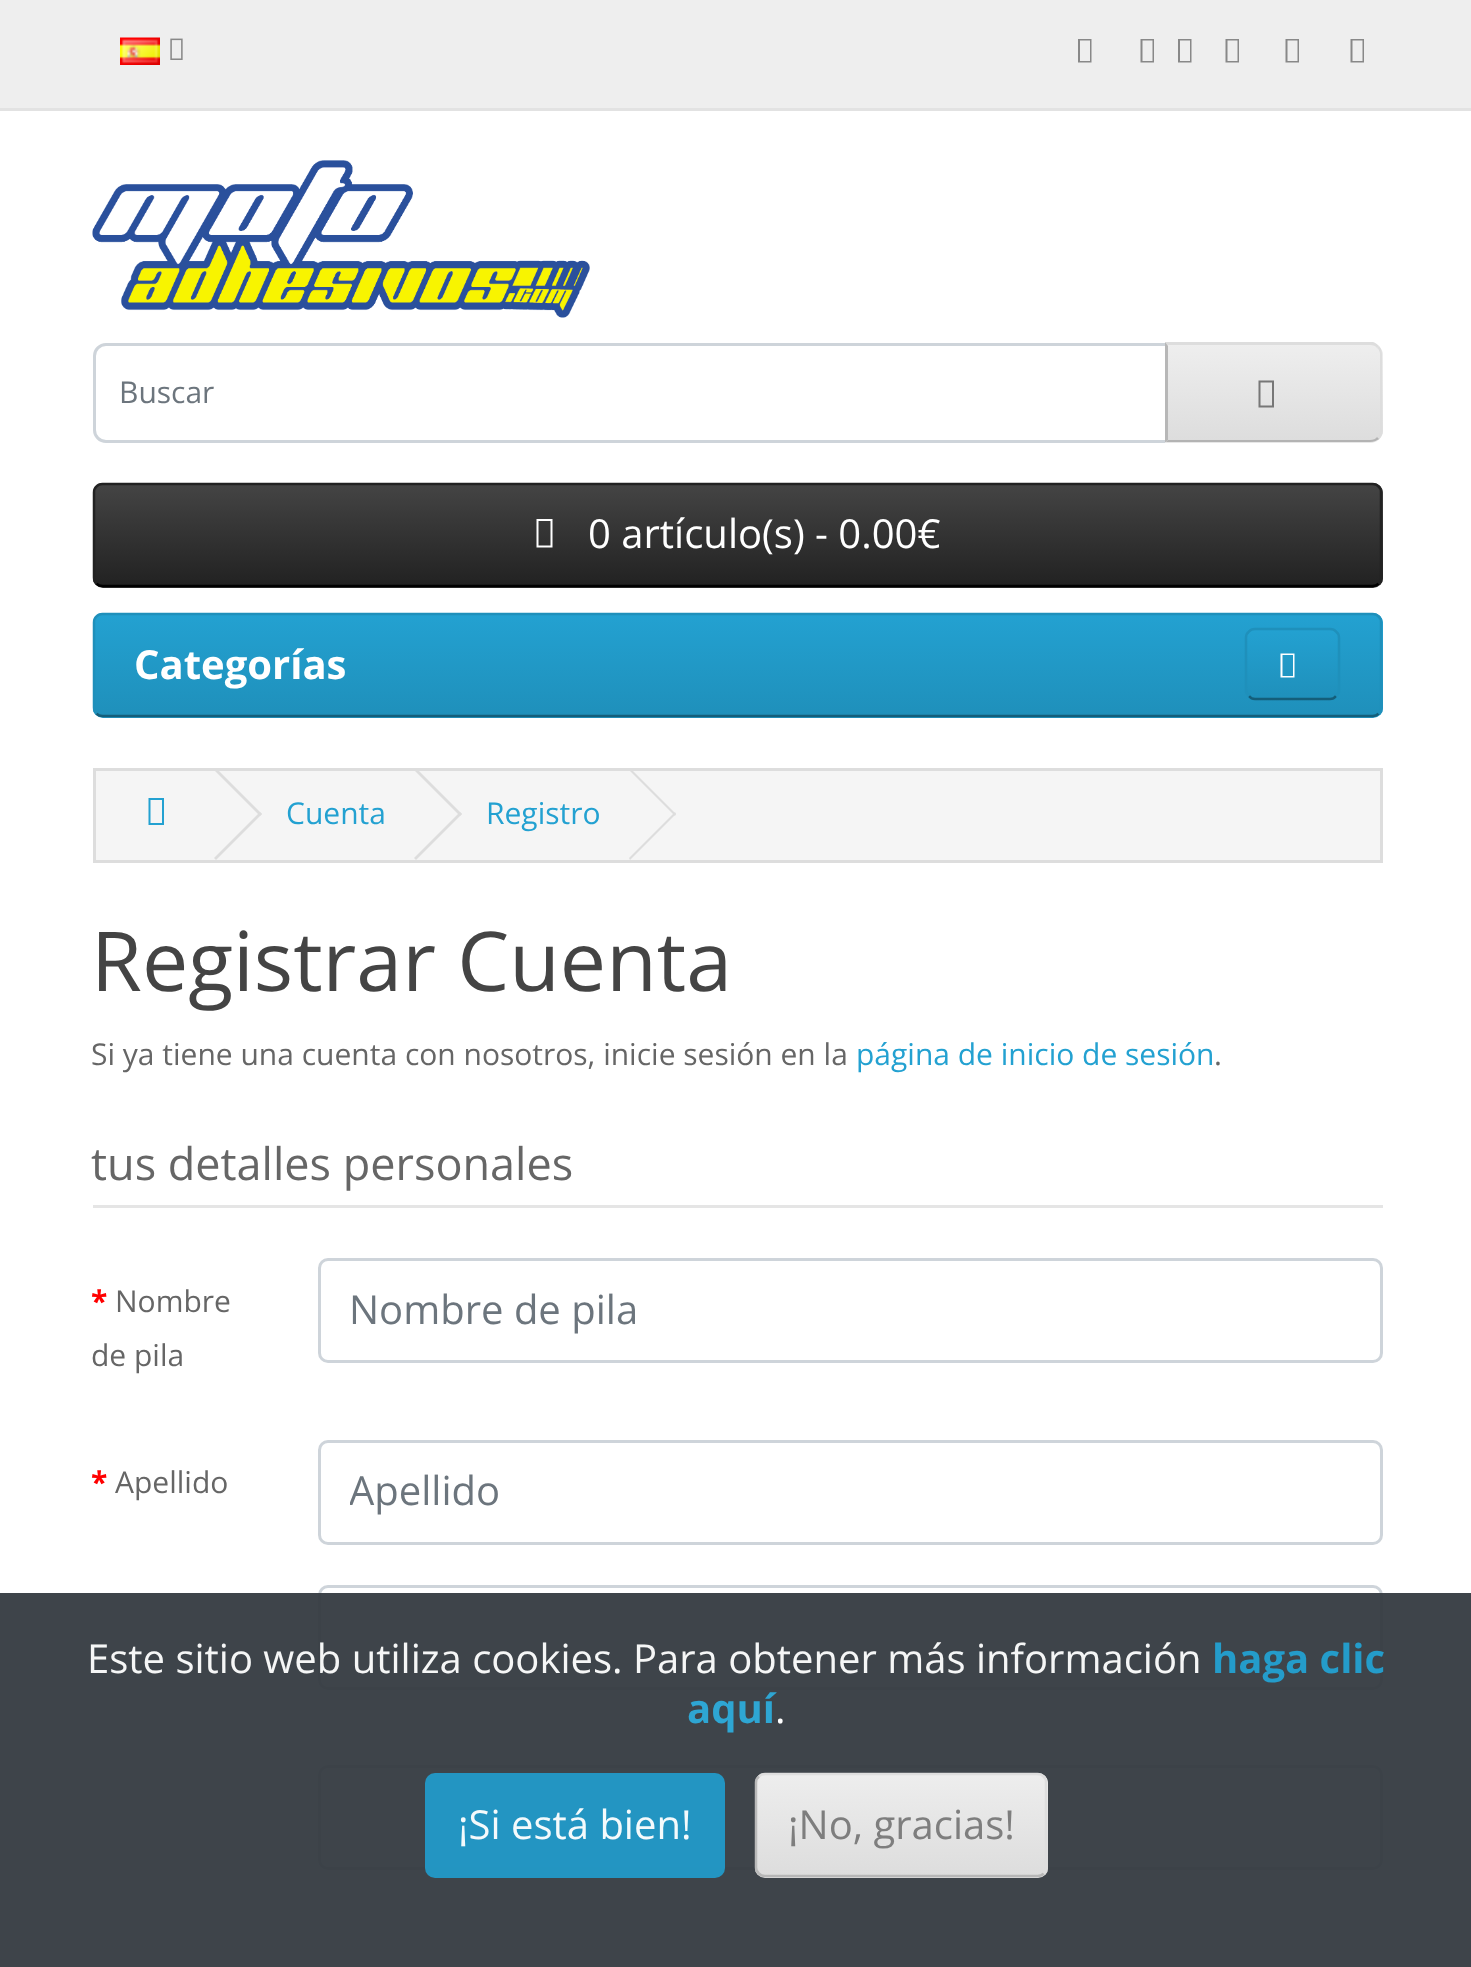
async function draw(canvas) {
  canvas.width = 1471;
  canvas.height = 1967;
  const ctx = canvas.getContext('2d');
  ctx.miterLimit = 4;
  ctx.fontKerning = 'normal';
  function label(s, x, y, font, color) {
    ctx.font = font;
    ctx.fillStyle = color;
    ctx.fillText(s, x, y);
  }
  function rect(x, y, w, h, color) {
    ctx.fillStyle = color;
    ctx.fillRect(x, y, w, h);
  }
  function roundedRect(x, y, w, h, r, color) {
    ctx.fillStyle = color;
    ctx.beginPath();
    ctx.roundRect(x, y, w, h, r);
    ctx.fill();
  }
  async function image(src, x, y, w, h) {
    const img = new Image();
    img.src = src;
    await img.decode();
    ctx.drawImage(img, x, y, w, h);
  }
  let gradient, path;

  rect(0, 0, 1471, 1967, '#fff');
  rect(0, 0, 1471, 108, '#eee');
  rect(0, 108, 1471, 3, '#e2e2e2');
  await image('assets/img1.png', 120, 37, 40, 28);
  await image('assets/img2.png', 170, 38, 13, 22);
  ctx.fillStyle = '#888';
  path = new Path2D('M1078 62.5V39H1091.5V62.5ZM1080 61H1090V40.5H1080Z');
  ctx.fill(path);
  path = new Path2D('M1140.5 62.5V39H1154V62.5ZM1142.5 61H1152.5V40.5H1142.5ZM1178 62.5V39H1191.5V62.5ZM1180 61H1190V40.5H1180Z');
  ctx.fill(path);
  path = new Path2D('M1225.5 62.5V39H1239V62.5ZM1227.5 61H1237.5V40.5H1227.5Z');
  ctx.fill(path);
  path = new Path2D('M1285.5 62.5V39H1299V62.5ZM1287.5 61H1297.5V40.5H1287.5Z');
  ctx.fill(path);
  path = new Path2D('M1350.5 62.5V39H1364V62.5ZM1352.5 61H1362.5V40.5H1352.5Z');
  ctx.fill(path);
  await image('assets/img3.png', 92, 160, 498, 158);
  ctx.beginPath();
  ctx.roundRect(94.5, 344.5, 1072, 97, [11.5, 0, 0, 11.5]);
  ctx.strokeStyle = '#ced4da';
  ctx.lineWidth = 3;
  ctx.stroke();
  label('Buscar', 119, 403, '30px Open Sans', '#6c757d');
  ctx.fillStyle = '#e7e7e7';
  ctx.beginPath();
  ctx.roundRect(1165, 343, 218, 100, [0, 13, 13, 0]);
  ctx.fill();
  ctx.save();
  ctx.beginPath();
  ctx.roundRect(1165, 343, 218, 100, [0, 13, 13, 0]);
  ctx.clip();
  gradient = ctx.createLinearGradient(1274, 345, 1274, 440);
  gradient.addColorStop(0, '#eee');
  gradient.addColorStop(1, '#ddd');
  ctx.fillStyle = gradient;
  ctx.fillRect(1167, 345, 216, 95);
  ctx.restore();
  ctx.fillStyle = '#ddd';
  path = new Path2D('M1168 345V346L1165 342H1373C1376 343 1377 344 1379 346L1377 348C1376 346 1373 345 1370 345Z');
  ctx.fill(path);
  path = new Path2D('M1379 346C1381 348 1382 351 1382 354V430C1382 434 1381 436 1379 439L1377 437C1379 436 1380 433 1380 430V354C1380 352 1379 349 1377 348Z');
  ctx.fill(path);
  ctx.fillStyle = '#b3b3b3';
  path = new Path2D('M1379 439C1376 441 1374 442 1370 442H1166L1168 440H1370C1373 440 1376 439 1377 437Z');
  ctx.fill(path);
  ctx.fillStyle = '#b7b7b7';
  path = new Path2D('M1165 342V442H1166L1168 440V346Z');
  ctx.fill(path);
  ctx.fillStyle = '#777';
  path = new Path2D('M1258.5 407.5V380.5H1274V407.5ZM1260.5 405.5H1272V382.5H1260.5Z');
  ctx.fill(path);
  roundedRect(93, 483, 1290, 105, 10, '#363636');
  ctx.save();
  ctx.beginPath();
  ctx.roundRect(93, 483, 1290, 105, 10);
  ctx.clip();
  gradient = ctx.createLinearGradient(738, 485, 738, 585);
  gradient.addColorStop(0, '#444');
  gradient.addColorStop(1, '#222');
  ctx.fillStyle = gradient;
  ctx.fillRect(93, 485, 1290, 100);
  ctx.restore();
  path = new Path2D('M1378.5 583.5C1377 585.5 1375 586 1372.5 586H102.5C100 586 98 585.5 96.5 583.5');
  ctx.strokeStyle = '#000';
  ctx.lineWidth = 2.5;
  ctx.stroke(path);
  path = new Path2D('M96.5 583.5C94.5 582 94 580 94 577.5V492.5C94 490 94.5 488 96.5 486.5C98 484.5 100 484 102.5 484H1372.5C1375 484 1377 484.5 1378.5 486.5C1380.5 488 1381 490 1381 492.5V577.5C1381 580 1380.5 582 1378.5 583.5');
  ctx.strokeStyle = '#222';
  ctx.stroke(path);
  ctx.fillStyle = '#fff';
  path = new Path2D('M536.5 547.5V519H552.5V547.5ZM538.5 545.5H550.5V521H538.5Z');
  ctx.fill(path);
  label('0 artículo(s) - 0.00€', 588, 548, '40px Open Sans', '#fff');
  roundedRect(93, 613, 1290, 105, 10, '#229ac8');
  ctx.save();
  ctx.beginPath();
  ctx.roundRect(93, 613, 1290, 105, 10);
  ctx.clip();
  gradient = ctx.createLinearGradient(738, 615, 738, 715);
  gradient.addColorStop(0, '#23a1d1');
  gradient.addColorStop(1, '#1f90bb');
  ctx.fillStyle = gradient;
  ctx.fillRect(93, 615, 1290, 100);
  ctx.restore();
  path = new Path2D('M1378.5 713.5C1377 715.5 1375 716 1372.5 716H102.5C100 716 98 715.5 96.5 713.5');
  ctx.strokeStyle = '#145e7a';
  ctx.stroke(path);
  path = new Path2D('M96.5 713.5C94.5 712 94 710 94 707.5V622.5C94 620 94.5 618 96.5 616.5C98 614.5 100 614 102.5 614H1372.5C1375 614 1377 614.5 1378.5 616.5C1380.5 618 1381 620 1381 622.5V707.5C1381 710 1380.5 712 1378.5 713.5');
  ctx.strokeStyle = '#1f90bb';
  ctx.stroke(path);
  label('Categorías', 134, 679, 'bold 40px Open Sans', '#fff');
  ctx.save();
  ctx.beginPath();
  ctx.roundRect(1245, 628, 95, 72, 10);
  ctx.clip();
  gradient = ctx.createLinearGradient(1293, 630, 1293, 698);
  gradient.addColorStop(0, '#23a1d1');
  gradient.addColorStop(1, '#1f90bb');
  ctx.fillStyle = gradient;
  ctx.fillRect(1245, 630, 95, 68);
  ctx.restore();
  path = new Path2D('M1336 696C1334.5 698 1332.5 699 1330 699H1255C1252.5 699 1250.5 698 1249 696');
  ctx.strokeStyle = '#145e7a';
  ctx.stroke(path);
  path = new Path2D('M1249 696C1247 694.5 1246 692.5 1246 690V637.5C1246 635 1247 633 1249 631.5C1250.5 629.5 1252.5 629 1255 629H1330C1332.5 629 1334.5 629.5 1336 631.5C1338 633 1339 635 1339 637.5V690C1339 692.5 1338 694.5 1336 696');
  ctx.strokeStyle = '#1f90bb';
  ctx.stroke(path);
  path = new Path2D('M1280.5 677.5V653.5H1294.5V677.5ZM1282.5 676H1293V655H1282.5Z');
  ctx.fill(path);
  ctx.fillStyle = '#f5f5f5';
  ctx.beginPath();
  ctx.rect(94.5, 769.5, 1287, 92);
  ctx.fill();
  ctx.strokeStyle = '#ddd';
  ctx.lineWidth = 3;
  ctx.stroke();
  ctx.fillStyle = '#23a1d1';
  path = new Path2D('M148.5 825V798H164V825ZM150.5 823H162V800H150.5Z');
  ctx.fill(path);
  ctx.fillStyle = '#ddd';
  path = new Path2D('M214 770L216 768L262 814L260 816Z');
  ctx.fill(path);
  path = new Path2D('M214 858L260 812L262 814L216 860Z');
  ctx.fill(path);
  label('Cuenta', 286, 824, '30px Open Sans', '#23a1d1');
  ctx.fillStyle = '#ddd';
  path = new Path2D('M414 770L416 768L462 814L460 816Z');
  ctx.fill(path);
  path = new Path2D('M414 858L460 812L462 814L416 860Z');
  ctx.fill(path);
  label('Registro', 486, 824, '30px Open Sans', '#23a1d1');
  ctx.fillStyle = '#ddd';
  path = new Path2D('M629 770L630 768L676 814L675 816Z');
  ctx.fill(path);
  path = new Path2D('M629 858L675 812L676 814L630 860Z');
  ctx.fill(path);
  label('Registrar Cuenta', 91, 991, '82.5px Open Sans', '#444');
  label('Si ya tiene una cuenta con nosotros, inicie sesión en la', 91, 1065, '30px Open Sans', '#666');
  label('página de inicio de sesión', 856, 1065, '30px Open Sans', '#23a1d1');
  label('.', 1214, 1065, '30px Open Sans', '#666');
  rect(93, 1205, 1290, 3, '#e5e5e5');
  label('tus detalles personales', 91, 1180, '45px Open Sans', '#666');
  label('*', 91, 1312, 'bold 30px Open Sans', '#f00');
  label('Nombre', 115, 1312, '30px Open Sans', '#666');
  label('de pila', 91, 1366, '30px Open Sans', '#666');
  ctx.beginPath();
  ctx.roundRect(319.5, 1259.5, 1062, 102, 8.5);
  ctx.strokeStyle = '#ced4da';
  ctx.stroke();
  label('Nombre de pila', 349, 1324, '40px Open Sans', '#6c757d');
  label('*', 91, 1493, 'bold 30px Open Sans', '#f00');
  label('Apellido', 115, 1493, '30px Open Sans', '#666');
  ctx.beginPath();
  ctx.roundRect(319.5, 1441.5, 1062, 102, 8.5);
  ctx.stroke();
  ctx.save();
  ctx.beginPath();
  ctx.rect(350, 1463, 1000, 55);
  ctx.clip();
  label('Apellido', 349, 1505, '40px Open Sans', '#6c757d');
  ctx.restore();
  ctx.beginPath();
  ctx.roundRect(319.5, 1586.5, 1062, 102, 8.5);
  ctx.stroke();
  ctx.beginPath();
  ctx.roundRect(319.5, 1766.5, 1062, 102, 8.5);
  ctx.stroke();
  rect(0, 1593, 1471, 374, '#343a40f2');
  label('Este sitio web utiliza cookies. Para obtener más información', 87, 1673, '40px Open Sans', '#f5f6f6');
  label('haga clic', 1212, 1673, 'bold 40px Open Sans', '#249cca');
  label('aquí', 687, 1723, 'bold 40px Open Sans', '#2ea6d3');
  label('.', 775, 1723, '40px Open Sans', '#fff');
  roundedRect(425, 1773, 300, 105, 10, '#229ac8f2');
  label('¡Si está bien!', 458, 1839, '40px Open Sans', '#f4fafc');
  roundedRect(755, 1773, 293, 105, 10, '#dfdfdf');
  ctx.save();
  ctx.beginPath();
  ctx.roundRect(755, 1773, 293, 105, 10);
  ctx.clip();
  gradient = ctx.createLinearGradient(901, 1775, 901, 1875);
  gradient.addColorStop(0, '#eeeeeef2');
  gradient.addColorStop(1, '#ddddddf2');
  ctx.fillStyle = gradient;
  ctx.fillRect(755, 1775, 293, 100);
  ctx.restore();
  path = new Path2D('M759 1776.5C760.5 1774.5 762.5 1774 765 1774H1037.5C1040 1774 1042 1774.5 1043.5 1776.5C1045.5 1778 1046 1780 1046 1782.5V1867.5C1046 1870 1045.5 1872 1043.5 1873.5');
  ctx.strokeStyle = '#ddddddf2';
  ctx.lineWidth = 2.5;
  ctx.stroke(path);
  path = new Path2D('M1043.5 1873.5C1042 1875.5 1040 1876 1037.5 1876H765C762.5 1876 760.5 1875.5 759 1873.5');
  ctx.strokeStyle = '#b7b7b7';
  ctx.stroke(path);
  path = new Path2D('M759 1873.5C757 1872 756 1870 756 1867.5V1782.5C756 1780 757 1778 759 1776.5');
  ctx.strokeStyle = '#b7b7b7f2';
  ctx.stroke(path);
  label('¡No, gracias!', 788, 1839, '40px Open Sans', '#7e7e7e');
}

draw(document.querySelector('canvas'));
